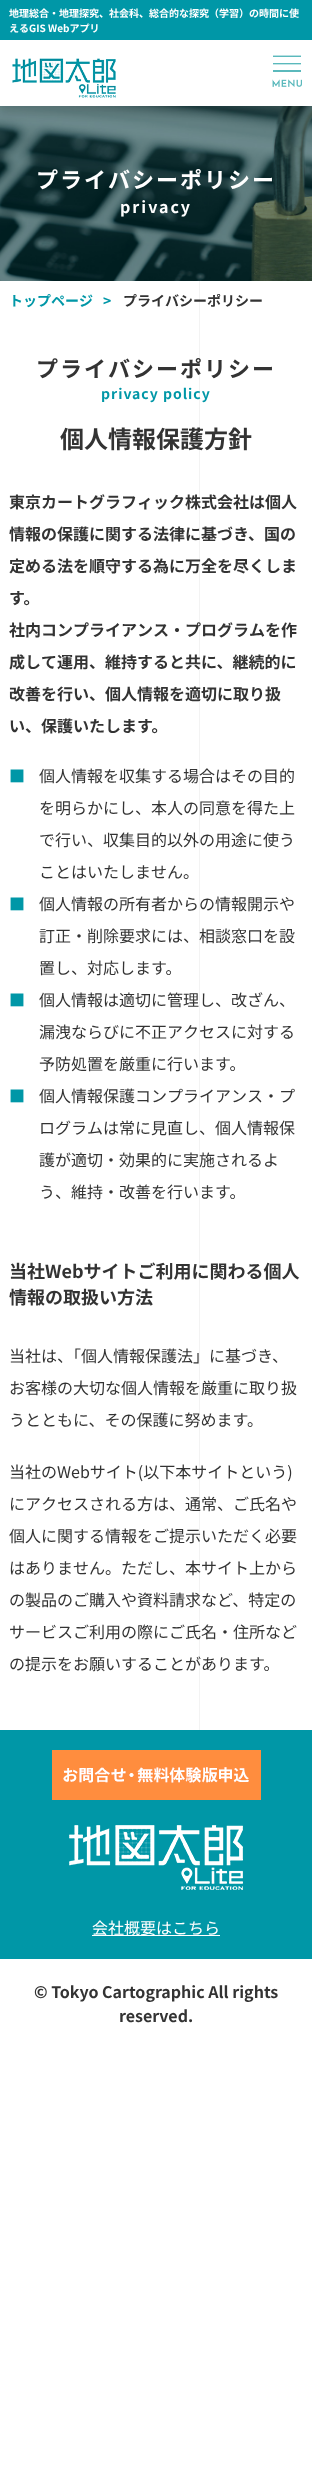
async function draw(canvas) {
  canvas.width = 312;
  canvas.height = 2479;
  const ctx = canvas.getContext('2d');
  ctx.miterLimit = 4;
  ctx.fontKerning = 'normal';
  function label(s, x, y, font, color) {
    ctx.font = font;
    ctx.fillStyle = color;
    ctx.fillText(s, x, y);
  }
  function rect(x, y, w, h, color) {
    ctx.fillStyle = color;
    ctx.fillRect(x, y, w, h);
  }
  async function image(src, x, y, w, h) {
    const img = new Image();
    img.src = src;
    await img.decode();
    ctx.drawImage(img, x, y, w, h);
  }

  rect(0, 0, 312, 2479, '#fff');
  await image('assets/img3.png', 0, 106, 312, 175);
  ctx.fillStyle = '#0000001a';
  ctx.filter = 'blur(4px)';
  ctx.beginPath();
  ctx.rect(0, 8, 312, 106);
  ctx.fill();
  ctx.filter = 'none';
  rect(0, 40, 312, 66, '#fff');
  rect(0, 0, 312, 40, '#0097a7');
  label('地理総合・地理探究、社会科、総合的な探究（学習）の時間に使', 9, 17, 'bold 10px Noto Sans JP', '#fff');
  label('えるGIS Webアプリ', 9, 32, 'bold 10px Noto Sans JP', '#fff');
  await image('assets/img1.png', 12, 58, 104, 40);
  await image('assets/img2.png', 272, 55, 30, 32);
  rect(199, 281, 1, 1449, '#f3f3f3');
  ctx.letterSpacing = '2px';
  label('プライバシーポリシー', 36, 188, 'bold 22px Noto Sans JP', '#fff');
  label('privacy', 120, 213, 'bold 16px Noto Sans JP', '#fff');
  ctx.letterSpacing = '0px';
  label('トップページ', 9, 306, 'bold 14px Noto Sans JP', '#0097a7');
  label('>', 103, 306, 'bold 14px Noto Sans JP', '#0097a7');
  label('プライバシーポリシー', 123, 306, 'bold 14px Noto Sans JP', '#333');
  ctx.letterSpacing = '2px';
  label('プライバシーポリシー', 36, 377, 'bold 22px Noto Sans JP', '#333');
  ctx.letterSpacing = '1px';
  label('privacy policy', 101, 399, 'bold 14px Noto Sans JP', '#0097a7');
  ctx.letterSpacing = '0px';
  label('個人情報保護方針', 60, 448, 'bold 24px Noto Sans JP', '#333');
  label('東京カートグラフィック株式会社は個人', 9, 508, 'bold 16px Noto Sans JP', '#333');
  label('情報の保護に関する法律に基づき、国の', 9, 540, 'bold 16px Noto Sans JP', '#333');
  label('定める法を順守する為に万全を尽くしま', 9, 572, 'bold 16px Noto Sans JP', '#333');
  label('す。', 9, 604, 'bold 16px Noto Sans JP', '#333');
  label('社内コンプライアンス・プログラムを作', 9, 636, 'bold 16px Noto Sans JP', '#333');
  label('成して運用、維持すると共に、継続的に', 9, 668, 'bold 16px Noto Sans JP', '#333');
  label('改善を行い、個人情報を適切に取り扱', 9, 700, 'bold 16px Noto Sans JP', '#333');
  label('い、保護いたします。', 9, 732, 'bold 16px Noto Sans JP', '#333');
  label('■', 9, 782, 'bold 16px Noto Sans JP', '#0097a7');
  label('個人情報を収集する場合はその目的', 39, 782, '16px Noto Sans JP', '#333');
  label('を明らかにし、本人の同意を得た上', 39, 814, '16px Noto Sans JP', '#333');
  label('で行い、収集目的以外の用途に使う', 39, 846, '16px Noto Sans JP', '#333');
  label('ことはいたしません。', 39, 878, '16px Noto Sans JP', '#333');
  label('■', 9, 910, 'bold 16px Noto Sans JP', '#0097a7');
  label('個人情報の所有者からの情報開示や', 39, 910, '16px Noto Sans JP', '#333');
  label('訂正・削除要求には、相談窓口を設', 39, 942, '16px Noto Sans JP', '#333');
  label('置し、対応します。', 39, 974, '16px Noto Sans JP', '#333');
  label('■', 9, 1006, 'bold 16px Noto Sans JP', '#0097a7');
  label('個人情報は適切に管理し、改ざん、', 39, 1006, '16px Noto Sans JP', '#333');
  label('漏洩ならびに不正アクセスに対する', 39, 1038, '16px Noto Sans JP', '#333');
  label('予防処置を厳重に行います。', 39, 1070, '16px Noto Sans JP', '#333');
  label('■', 9, 1102, 'bold 16px Noto Sans JP', '#0097a7');
  label('個人情報保護コンプライアンス・プ', 39, 1102, '16px Noto Sans JP', '#333');
  label('ログラムは常に見直し、個人情報保', 39, 1134, '16px Noto Sans JP', '#333');
  label('護が適切・効果的に実施されるよ', 39, 1166, '16px Noto Sans JP', '#333');
  label('う、維持・改善を行います。', 39, 1198, '16px Noto Sans JP', '#333');
  label('当社Webサイトご利用に関わる個人', 9, 1278, 'bold 18px Noto Sans JP', '#333');
  label('情報の取扱い方法', 9, 1304, 'bold 18px Noto Sans JP', '#333');
  label('当社は、「個人情報保護法」に基づき、', 9, 1362, '16px Noto Sans JP', '#333');
  label('お客様の大切な個人情報を厳重に取り扱', 9, 1394, '16px Noto Sans JP', '#333');
  label('うとともに、その保護に努めます。', 9, 1426, '16px Noto Sans JP', '#333');
  label('当社のWebサイト(以下本サイトという)', 9, 1478, '16px Noto Sans JP', '#333');
  label('にアクセスされる方は、通常、ご氏名や', 9, 1510, '16px Noto Sans JP', '#333');
  label('個人に関する情報をご提示いただく必要', 9, 1542, '16px Noto Sans JP', '#333');
  label('はありません。ただし、本サイト上から', 9, 1574, '16px Noto Sans JP', '#333');
  label('の製品のご購入や資料請求など、特定の', 9, 1606, '16px Noto Sans JP', '#333');
  label('サービスご利用の際にご氏名・住所など', 9, 1638, '16px Noto Sans JP', '#333');
  label('の提示をお願いすることがあります。', 9, 1670, '16px Noto Sans JP', '#333');
  rect(0, 1730, 312, 229, '#0097a7');
  await image('assets/img4.png', 52, 1750, 209, 50);
  await image('assets/img5.png', 69, 1825, 174, 65);
  rect(92, 1935, 128, 1, '#fff');
  label('会社概要はこちら', 92, 1934, '16px Noto Sans JP', '#fff');
  label('© Tokyo Cartographic All rights', 34, 1998, 'bold 16px Noto Sans JP', '#333');
  label('reserved.', 119, 2022, 'bold 16px Noto Sans JP', '#333');
}

draw(document.querySelector('canvas'));
